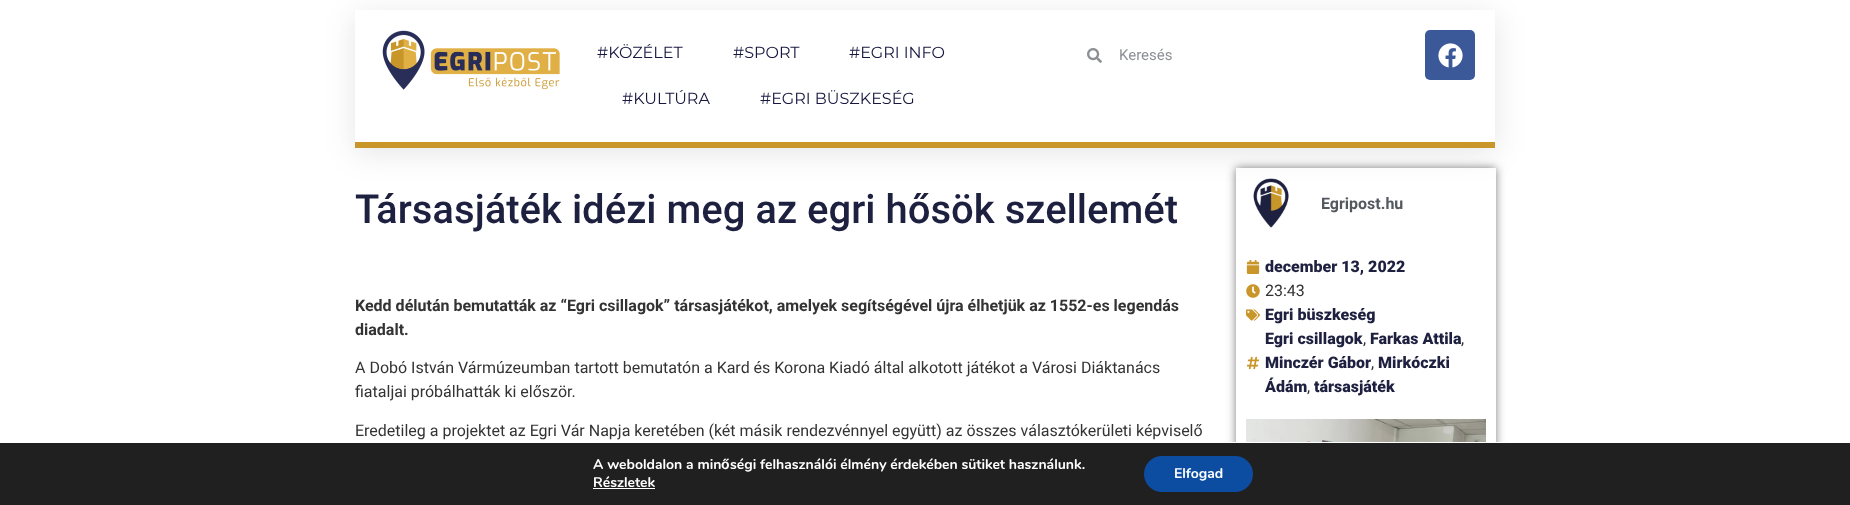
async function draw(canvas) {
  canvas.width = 1850;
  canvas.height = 505;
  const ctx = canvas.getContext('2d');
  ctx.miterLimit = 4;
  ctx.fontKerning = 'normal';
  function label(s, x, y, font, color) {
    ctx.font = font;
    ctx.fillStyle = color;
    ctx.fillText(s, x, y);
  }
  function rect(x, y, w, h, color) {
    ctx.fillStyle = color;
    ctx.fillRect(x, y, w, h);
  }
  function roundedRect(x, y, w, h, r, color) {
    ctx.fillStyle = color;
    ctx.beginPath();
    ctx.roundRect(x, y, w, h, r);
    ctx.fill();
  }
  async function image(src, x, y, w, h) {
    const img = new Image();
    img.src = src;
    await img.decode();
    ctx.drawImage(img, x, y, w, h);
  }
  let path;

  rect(0, 0, 1850, 505, '#fff');
  ctx.save();
  path = new Path2D('M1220 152H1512V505H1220ZM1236 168H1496V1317H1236Z');
  ctx.clip(path, 'evenodd');
  ctx.fillStyle = '#00000080';
  ctx.filter = 'blur(5px)';
  ctx.beginPath();
  ctx.rect(1236, 168, 260, 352);
  ctx.fill();
  ctx.filter = 'none';
  ctx.restore();
  await image('assets/img4.png', 1253, 178, 36, 50);
  ctx.save();
  path = new Path2D('M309 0H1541V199H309ZM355 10H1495V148H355Z');
  ctx.clip(path, 'evenodd');
  ctx.fillStyle = '#0000001a';
  ctx.filter = 'blur(15px)';
  ctx.beginPath();
  ctx.rect(355, 15, 1140, 138);
  ctx.fill();
  ctx.filter = 'none';
  ctx.restore();
  rect(355, 142, 1140, 6, '#c9962a');
  await image('assets/img1.png', 382, 30, 178, 60);
  label('#KÖZÉLET', 597, 58, '16px Montserrat', '#16163f');
  label('#SPORT', 733, 58, '16px Montserrat', '#16163f');
  label('#EGRI INFO', 849, 58, '16px Montserrat', '#16163f');
  label('#KULTÚRA', 622, 104, '16px Montserrat', '#16163f');
  label('#EGRI BÜSZKESÉG', 760, 104, '16px Montserrat', '#16163f');
  await image('assets/img2.png', 1087, 48, 15, 15);
  label('Keresés', 1119, 60, '15px Roboto', '#8c8f93');
  roundedRect(1425, 30, 50, 50, 5, '#3b5998');
  await image('assets/img3.png', 1438, 43, 25, 25);
  label('Társasjáték idézi meg az egri hősök szellemét', 355, 223, '500 40px Roboto', '#1d203f');
  label('Kedd délután bemutatták az “Egri csillagok” társasjátékot, amelyek segítségével újra élhetjük az 1552-es legendás', 355, 311, 'bold 16px Roboto', '#333');
  label('diadalt.', 355, 335, 'bold 16px Roboto', '#333');
  label('A Dobó István Vármúzeumban tartott bemutatón a Kard és Korona Kiadó által alkotott játékot a Városi Diáktanács', 355, 373, '16px Roboto', '#333');
  label('fiataljai próbálhatták ki először.', 355, 397, '16px Roboto', '#333');
  label('Eredetileg a projektet az Egri Vár Napja keretében (két másik rendezvénnyel együtt) az összes választókerületi képviselő', 355, 436, '16px Roboto', '#333');
  label('Egripost.hu', 1321, 209, 'bold 16px Roboto', '#54595f');
  await image('assets/img5.png', 1246, 260, 14, 14);
  label('december 13, 2022', 1265, 272, '900 16px Roboto', '#1d203f');
  await image('assets/img6.png', 1246, 284, 14, 14);
  label('23:43', 1265, 296, '16px Roboto', '#333');
  await image('assets/img7.png', 1246, 309, 14, 12);
  label('Egri büszkeség', 1265, 320, '900 16px Roboto', '#1d203f');
  await image('assets/img8.png', 1246, 356, 14, 14);
  label('Egri csillagok', 1265, 344, '900 16px Roboto', '#1d203f');
  label(',', 1363, 344, '16px Roboto', '#333');
  label('Farkas Attila', 1370, 344, '900 16px Roboto', '#1d203f');
  label(',', 1461, 344, '16px Roboto', '#333');
  label('Minczér Gábor', 1265, 368, '900 16px Roboto', '#1d203f');
  label(',', 1371, 368, '16px Roboto', '#333');
  label('Mirkóczki', 1378, 368, '900 16px Roboto', '#1d203f');
  label('Ádám', 1265, 392, '900 16px Roboto', '#1d203f');
  label(',', 1307, 392, '16px Roboto', '#333');
  label('társasjáték', 1314, 392, '900 16px Roboto', '#1d203f');
  await image('assets/img9.png', 1246, 419, 240, 23);
  rect(0, 443, 1850, 62, '#202020');
  rect(1226, 442, 280, 1, '#fff');
  label('A weboldalon a min', 593, 469, 'bold 14px Nunito', '#fff');
  label('ő', 721, 469, 'bold 14px Liberation Sans', '#fff');
  label('ségi felhasználói élmény érdekében sütiket használunk.', 730, 469, 'bold 14px Nunito', '#fff');
  label('Részletek', 593, 487, 'bold 14px Nunito', '#fff');
  rect(593, 488, 62, 1, '#fff');
  roundedRect(1144, 456, 109, 36, 18, '#0c4da2');
  label('Elfogad', 1174, 478, 'bold 14px Nunito', '#fff');
}

draw(document.querySelector('canvas'));
